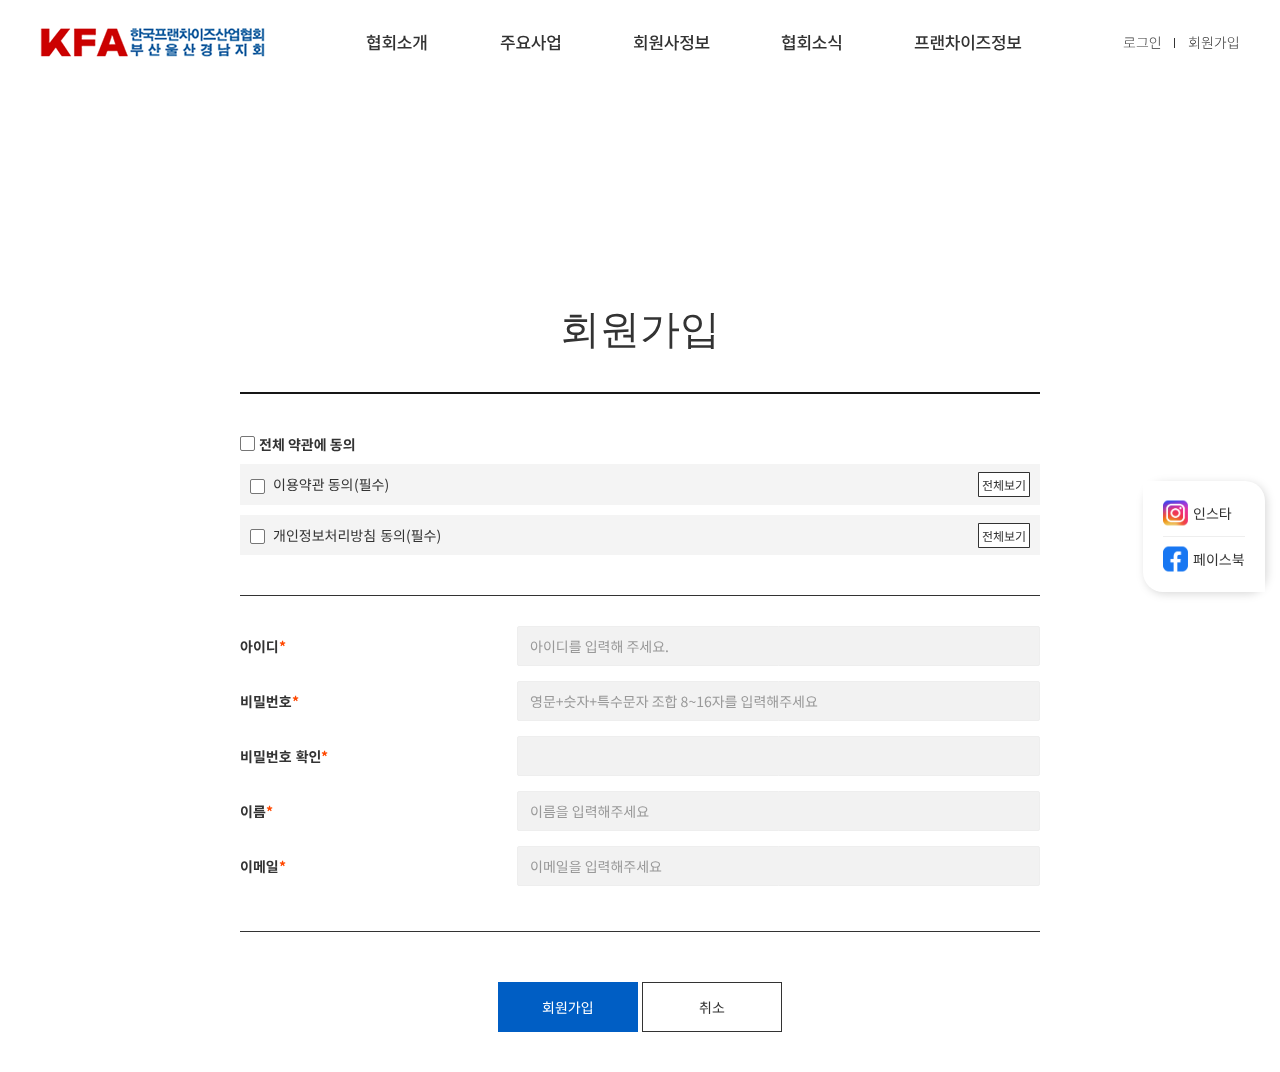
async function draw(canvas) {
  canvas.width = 1280;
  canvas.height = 1072;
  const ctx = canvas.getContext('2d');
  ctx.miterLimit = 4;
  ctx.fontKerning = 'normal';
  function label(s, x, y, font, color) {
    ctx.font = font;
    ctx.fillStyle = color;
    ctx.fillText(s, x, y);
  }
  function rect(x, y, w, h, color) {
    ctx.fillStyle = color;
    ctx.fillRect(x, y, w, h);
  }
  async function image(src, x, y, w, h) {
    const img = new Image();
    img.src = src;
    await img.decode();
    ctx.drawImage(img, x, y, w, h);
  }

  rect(0, 0, 1280, 1072, '#fff');
  await image('assets/img1.png', 40, 28, 225, 29);
  ctx.letterSpacing = '-0.25px';
  label('협회소개', 366, 49, '500 17px Noto Sans KR', '#333');
  label('주요사업', 500, 49, '500 17px Noto Sans KR', '#333');
  label('회원사정보', 633, 49, '500 17px Noto Sans KR', '#333');
  label('협회소식', 781, 49, '500 17px Noto Sans KR', '#333');
  label('프랜차이즈정보', 914, 49, '500 17px Noto Sans KR', '#333');
  ctx.letterSpacing = '0px';
  label('로그인', 1123, 48, '300 14px Noto Sans KR', '#333');
  rect(1174, 38, 1, 10, '#333');
  label('회원가입', 1188, 48, '300 14px Noto Sans KR', '#333');
  label('회원가입', 560, 343, '500 40px WenQuanYi Zen Hei', '#333');
  rect(240, 392, 800, 2, '#171717');
  rect(240, 595, 800, 1, '#333');
  ctx.beginPath();
  ctx.roundRect(240.5, 436.5, 14, 14, 1.5);
  ctx.strokeStyle = '#767676';
  ctx.stroke();
  label('전체 약관에 동의', 259, 450, 'bold 14px Noto Sans KR', '#333');
  rect(240, 464, 800, 41, '#f4f4f4');
  ctx.fillStyle = '#fff';
  ctx.beginPath();
  ctx.roundRect(250.5, 479.5, 14, 14, 1.5);
  ctx.fill();
  ctx.stroke();
  label('이용약관 동의', 273, 490, '14px Noto Sans KR', '#333');
  label('(필수)', 354, 490, '14px Noto Sans KR', '#333');
  ctx.fillStyle = '#fff';
  ctx.beginPath();
  ctx.rect(978.5, 472.5, 51, 24);
  ctx.fill();
  ctx.strokeStyle = '#333';
  ctx.stroke();
  label('전체보기', 982, 490, '12px Noto Sans KR', '#333');
  rect(240, 515, 800, 40, '#f4f4f4');
  ctx.fillStyle = '#fff';
  ctx.beginPath();
  ctx.roundRect(250.5, 529.5, 14, 14, 1.5);
  ctx.fill();
  ctx.strokeStyle = '#767676';
  ctx.stroke();
  ctx.wordSpacing = '1px';
  label('개인정보처리방침 동의', 273, 541, '14px Noto Sans KR', '#333');
  ctx.wordSpacing = '0px';
  label('(필수)', 406, 541, '14px Noto Sans KR', '#333');
  ctx.fillStyle = '#fff';
  ctx.beginPath();
  ctx.rect(978.5, 523.5, 51, 24);
  ctx.fill();
  ctx.strokeStyle = '#333';
  ctx.stroke();
  label('전체보기', 982, 541, '12px Noto Sans KR', '#333');
  rect(240, 931, 800, 1, '#333');
  label('아이디', 240, 652, 'bold 14px Noto Sans KR', '#333');
  label('*', 279, 652, 'bold 14px Noto Sans KR', '#ff4800');
  ctx.fillStyle = '#f2f2f2';
  ctx.beginPath();
  ctx.roundRect(517.5, 626.5, 522, 39, 1.5);
  ctx.fill();
  ctx.strokeStyle = '#eee';
  ctx.stroke();
  label('아이디를 입력해 주세요.', 530, 652, '14px Noto Sans KR', '#999');
  label('비밀번호', 240, 707, 'bold 14px Noto Sans KR', '#333');
  label('*', 292, 707, 'bold 14px Noto Sans KR', '#ff4800');
  ctx.fillStyle = '#f2f2f2';
  ctx.beginPath();
  ctx.roundRect(517.5, 681.5, 522, 39, 1.5);
  ctx.fill();
  ctx.stroke();
  label('영문+숫자+특수문자 조합 8~16자를 입력해주세요', 530, 707, '14px Noto Sans KR', '#999');
  ctx.wordSpacing = '1px';
  label('비밀번호 확인', 240, 762, 'bold 14px Noto Sans KR', '#333');
  ctx.wordSpacing = '0px';
  label('*', 321, 762, 'bold 14px Noto Sans KR', '#ff4800');
  ctx.fillStyle = '#f2f2f2';
  ctx.beginPath();
  ctx.roundRect(517.5, 736.5, 522, 39, 1.5);
  ctx.fill();
  ctx.stroke();
  label('이름', 240, 817, 'bold 14px Noto Sans KR', '#333');
  label('*', 266, 817, 'bold 14px Noto Sans KR', '#ff4800');
  ctx.fillStyle = '#f2f2f2';
  ctx.beginPath();
  ctx.roundRect(517.5, 791.5, 522, 39, 1.5);
  ctx.fill();
  ctx.stroke();
  label('이름을 입력해주세요', 530, 817, '14px Noto Sans KR', '#999');
  label('이메일', 240, 872, 'bold 14px Noto Sans KR', '#333');
  label('*', 279, 872, 'bold 14px Noto Sans KR', '#ff4800');
  ctx.fillStyle = '#f2f2f2';
  ctx.beginPath();
  ctx.roundRect(517.5, 846.5, 522, 39, 1.5);
  ctx.fill();
  ctx.stroke();
  label('이메일을 입력해주세요', 530, 872, '14px Noto Sans KR', '#999');
  rect(498, 982, 140, 50, '#005ec4');
  label('회원가입', 542, 1013, '14px Noto Sans KR', '#fff');
  ctx.strokeStyle = '#333';
  ctx.strokeRect(642.5, 982.5, 139, 49);
  label('취소', 699, 1013, '14px Noto Sans KR', '#333');
  ctx.fillStyle = '#00000026';
  ctx.filter = 'blur(4.5px)';
  ctx.beginPath();
  ctx.roundRect(1145, 483, 122, 111, 20);
  ctx.fill();
  ctx.filter = 'none';
  ctx.fillStyle = '#fff';
  ctx.beginPath();
  ctx.roundRect(1143, 481, 122, 111, [0, 20, 0, 20]);
  ctx.fill();
  rect(1163, 536, 82, 1, '#eee');
  await image('assets/img2.png', 1163, 500, 25, 26);
  label('인스타', 1193, 519, '14px Noto Sans KR', '#333');
  await image('assets/img3.png', 1163, 546, 25, 26);
  label('페이스북', 1193, 565, '14px Noto Sans KR', '#333');
}

draw(document.querySelector('canvas'));
